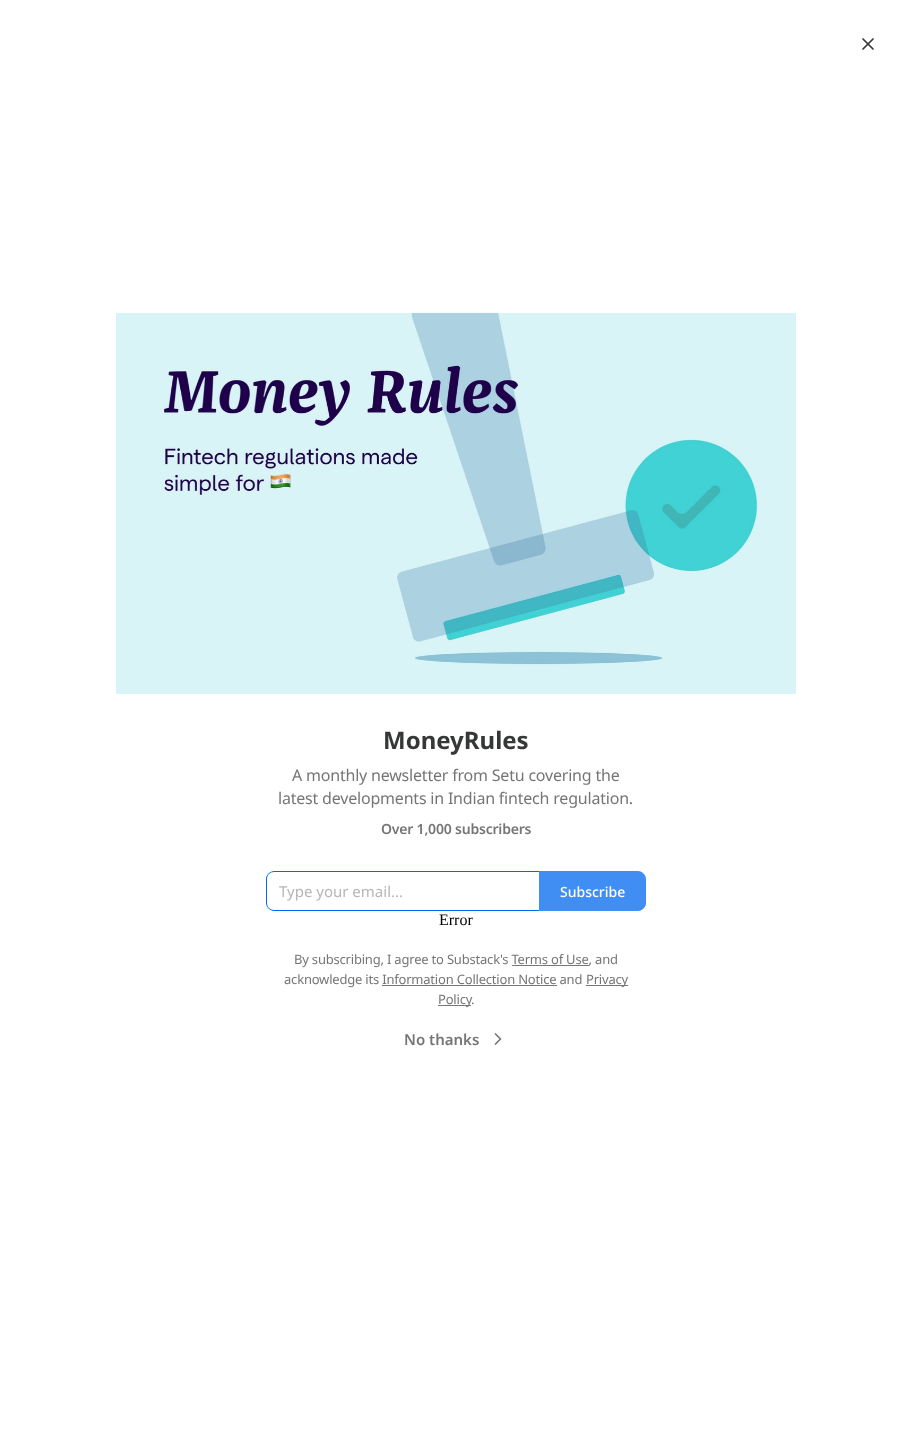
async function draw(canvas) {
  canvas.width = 912;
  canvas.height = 1444;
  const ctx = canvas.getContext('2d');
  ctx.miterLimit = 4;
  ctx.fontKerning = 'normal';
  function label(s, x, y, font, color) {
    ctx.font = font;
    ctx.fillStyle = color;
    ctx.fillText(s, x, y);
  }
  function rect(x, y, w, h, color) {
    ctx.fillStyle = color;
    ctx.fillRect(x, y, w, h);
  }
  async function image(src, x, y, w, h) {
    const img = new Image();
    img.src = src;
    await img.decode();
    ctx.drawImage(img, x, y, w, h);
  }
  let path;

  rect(0, 0, 912, 1444, '#fff');
  path = new Path2D('M873 39L863 49M863 39L873 49');
  ctx.strokeStyle = '#363737';
  ctx.lineWidth = 1.7;
  ctx.lineCap = 'round';
  ctx.lineJoin = 'round';
  ctx.stroke(path);
  await image('assets/img1.png', 116, 312, 680, 382);
  label('MoneyRules', 383, 749, 'bold 24px Noto Sans', '#363737');
  ctx.letterSpacing = '-0.2px';
  label('A monthly newsletter from Setu covering the', 292, 781, '16px Noto Sans', '#757575');
  label('latest developments in Indian fintech regulation.', 278, 804, '16px Noto Sans', '#757575');
  label('Over 1,000 subscribers', 381, 834, '600 14px Noto Sans', '#757575');
  ctx.fillStyle = '#0068ef';
  path = new Path2D('M274 871H539V911H274C270 911 266 907 266 903V879C266 875 270 871 274 871ZM274 872H539V910H274C270 910 267 907 267 903V879C267 875 270 872 274 872Z');
  ctx.fill(path, 'evenodd');
  ctx.letterSpacing = '0px';
  label('Type your email...', 279, 897, '15px Noto Sans', '#b6b6b6');
  ctx.fillStyle = '#408ef3';
  ctx.beginPath();
  ctx.roundRect(539.5, 871.5, 106, 39, [0, 7.5, 7.5, 0]);
  ctx.fill();
  ctx.strokeStyle = '#408ef3';
  ctx.lineWidth = 1;
  ctx.lineJoin = 'miter';
  ctx.stroke();
  label('Subscribe', 560, 897, '500 14px Noto Sans', '#fff');
  label('Error', 439, 925, '16px Liberation Serif', '#000');
  ctx.letterSpacing = '-0.2px';
  label('By subscribing, I agree to Substack\'s Terms of Use, and', 294, 964, '13px Noto Sans', '#757575');
  rect(512, 965, 77, 1, '#777');
  label('acknowledge its Information Collection Notice and', 284, 984, '13px Noto Sans', '#757575');
  rect(586, 985, 42, 1, '#777');
  label('Privacy', 586, 984, '13px Noto Sans', '#757575');
  rect(382, 985, 175, 1, '#777');
  rect(438, 1005, 33, 1, '#777');
  label('Policy', 438, 1004, '13px Noto Sans', '#757575');
  label('.', 471, 1004, '13px Noto Sans', '#757575');
  ctx.letterSpacing = '0px';
  label('No thanks', 404, 1045, '600 15px Noto Sans', '#757575');
  path = new Path2D('M495.5 1044L500.5 1039L495.5 1034');
  ctx.strokeStyle = '#757575';
  ctx.lineWidth = 1.7;
  ctx.lineJoin = 'round';
  ctx.stroke(path);
}

draw(document.querySelector('canvas'));
